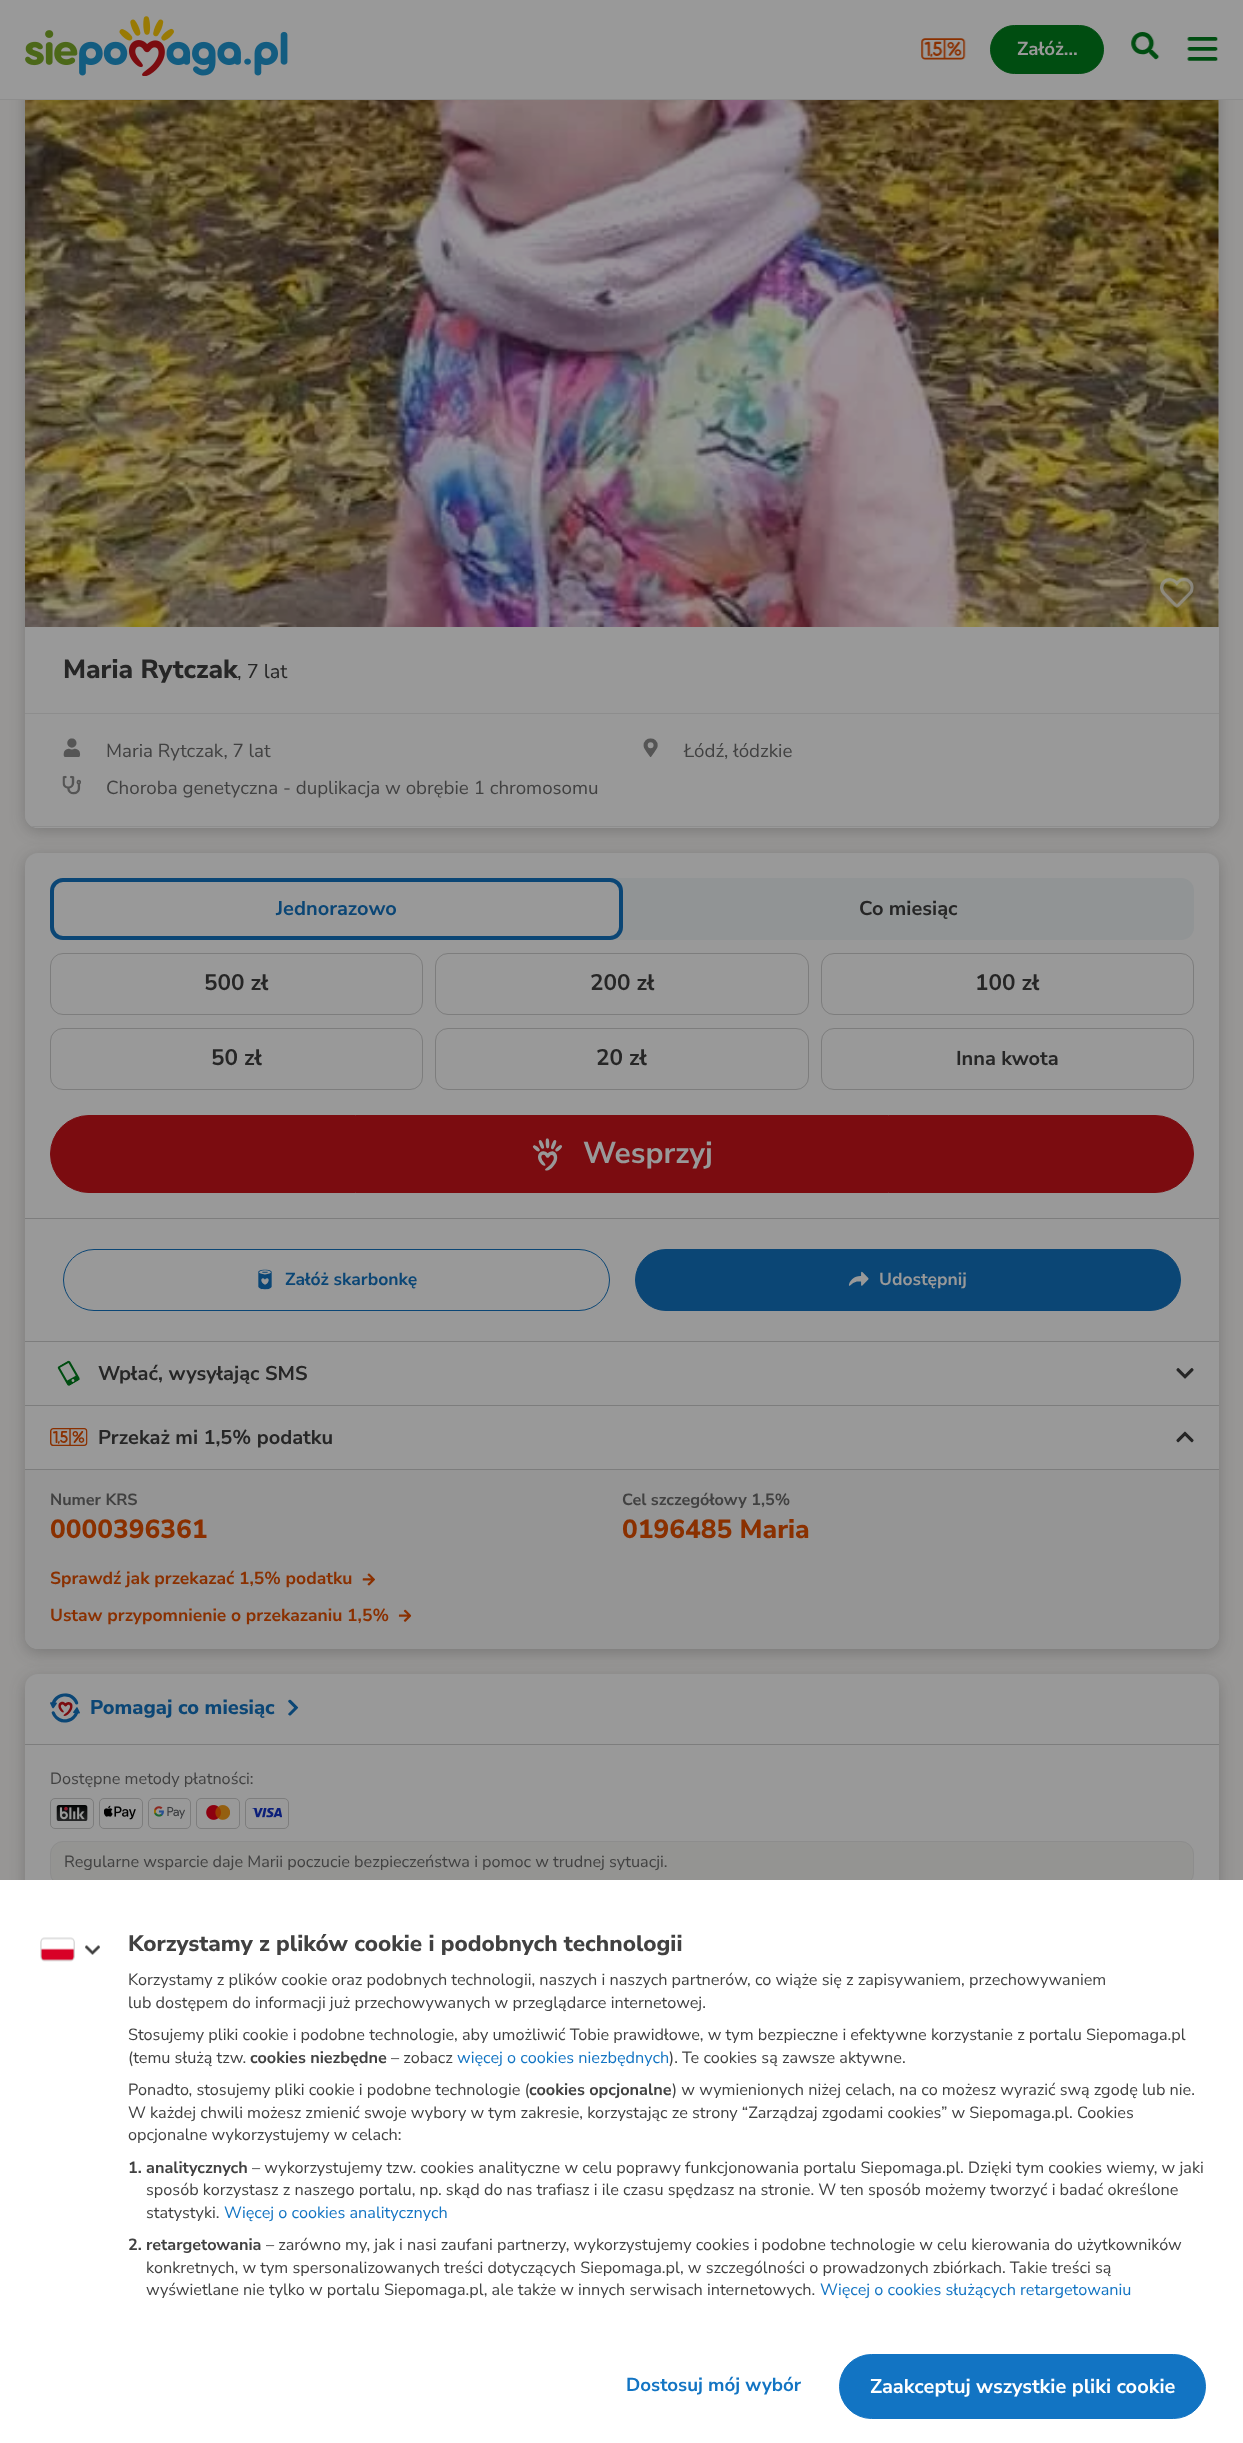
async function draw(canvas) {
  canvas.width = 1243;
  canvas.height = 2443;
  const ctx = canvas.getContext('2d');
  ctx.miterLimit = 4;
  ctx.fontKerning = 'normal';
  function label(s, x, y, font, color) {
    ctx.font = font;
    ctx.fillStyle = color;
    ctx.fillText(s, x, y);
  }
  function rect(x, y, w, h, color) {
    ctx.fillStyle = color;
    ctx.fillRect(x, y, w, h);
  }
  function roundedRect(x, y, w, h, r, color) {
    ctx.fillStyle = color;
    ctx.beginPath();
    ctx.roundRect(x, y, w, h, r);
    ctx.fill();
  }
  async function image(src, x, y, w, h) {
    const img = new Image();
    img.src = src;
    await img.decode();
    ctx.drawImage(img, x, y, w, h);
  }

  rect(0, 0, 1243, 2443, '#979695');
  ctx.fillStyle = '#26262642';
  ctx.filter = 'blur(7.5px)';
  ctx.beginPath();
  ctx.roundRect(25, -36, 1194, 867, 13);
  ctx.fill();
  ctx.filter = 'none';
  roundedRect(25, -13, 1194, 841, 13, '#999');
  rect(0, 0, 1243, 99, '#999');
  rect(0, 99, 1243, 1, '#8d8d8d');
  await image('assets/img1.png', 25, 16, 263, 60);
  await image('assets/img2.png', 921, 38, 45, 22);
  ctx.fillStyle = '#004d11';
  ctx.beginPath();
  ctx.roundRect(990.5, 25.5, 113, 48, 24);
  ctx.fill();
  ctx.strokeStyle = '#004d11';
  ctx.stroke();
  label('Załóż…', 1017, 55, 'bold 18.75px Nunito Sans', '#999');
  await image('assets/img3.png', 1131, 32, 29, 28);
  await image('assets/img4.png', 1187, 37, 31, 24);
  await image('assets/img5.png', 25, 100, 1194, 527);
  await image('assets/img6.png', 1160, 577, 34, 31);
  label('Maria Rytczak', 63, 678, '800 26.25px Nunito Sans', '#262626');
  label(', 7 lat', 237, 678, '20px Nunito Sans', '#262626');
  ctx.fillStyle = '#999';
  ctx.beginPath();
  ctx.roundRect(25, 713, 1194, 115, [0, 0, 13, 13]);
  ctx.fill();
  rect(25, 713, 1194, 1, '#8d8d8d');
  ctx.save();
  ctx.beginPath();
  ctx.roundRect(25, -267, 1194, 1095, 13);
  ctx.clip();
  rect(25, 826, 1194, 1, '#8d8d8d');
  ctx.restore();
  await image('assets/img7.png', 63, 738, 18, 19);
  label('Maria Rytczak, 7 lat', 106, 757, '18.75px Nunito Sans', '#414141');
  await image('assets/img8.png', 643, 738, 15, 19);
  label('Łódź, łódzkie', 684, 757, '18.75px Nunito Sans', '#414141');
  await image('assets/img9.png', 62, 775, 19, 20);
  label('Choroba genetyczna - duplikacja w obrębie 1 chromosomu', 106, 794, '18.75px Nunito Sans', '#414141');
  ctx.fillStyle = '#26262642';
  ctx.filter = 'blur(7.5px)';
  ctx.beginPath();
  ctx.roundRect(25, 856, 1194, 797, 13);
  ctx.fill();
  ctx.filter = 'none';
  roundedRect(25, 853, 1194, 796, 13, '#999');
  roundedRect(50, 878, 1144, 62, 13, '#919495');
  ctx.fillStyle = '#999';
  ctx.beginPath();
  ctx.roundRect(52, 880, 569, 58, 11);
  ctx.fill();
  ctx.strokeStyle = '#0b4675';
  ctx.lineWidth = 4;
  ctx.stroke();
  label('Jednorazowo', 276, 915, 'bold 20px Nunito Sans', '#0b4675');
  label('Co miesiąc', 859, 915, 'bold 20px Nunito Sans', '#262626');
  ctx.beginPath();
  ctx.roundRect(50.5, 953.5, 372, 61, 12.5);
  ctx.strokeStyle = '#7d7d7d';
  ctx.lineWidth = 1;
  ctx.stroke();
  label('500 zł', 204, 990, 'bold 22.5px Nunito Sans', '#262626');
  ctx.beginPath();
  ctx.roundRect(435.5, 953.5, 373, 61, 12.5);
  ctx.stroke();
  label('200 zł', 590, 990, 'bold 22.5px Nunito Sans', '#262626');
  ctx.beginPath();
  ctx.roundRect(821.5, 953.5, 372, 61, 12.5);
  ctx.stroke();
  label('100 zł', 975, 990, 'bold 22.5px Nunito Sans', '#262626');
  ctx.beginPath();
  ctx.roundRect(50.5, 1028.5, 372, 61, 12.5);
  ctx.stroke();
  label('50 zł', 211, 1065, 'bold 22.5px Nunito Sans', '#262626');
  ctx.beginPath();
  ctx.roundRect(435.5, 1028.5, 373, 61, 12.5);
  ctx.stroke();
  label('20 zł', 596, 1065, 'bold 22.5px Nunito Sans', '#262626');
  ctx.beginPath();
  ctx.roundRect(821.5, 1028.5, 372, 61, 12.5);
  ctx.stroke();
  label('Inna kwota', 956, 1065, 'bold 20px Nunito Sans', '#262626');
  ctx.fillStyle = '#7b0c10';
  ctx.beginPath();
  ctx.roundRect(50.5, 1115.5, 1143, 77, 38.5);
  ctx.fill();
  ctx.strokeStyle = '#7b0c10';
  ctx.stroke();
  await image('assets/img10.png', 532, 1138, 30, 33);
  label('Wesprzyj', 583, 1163, 'bold 30px Nunito Sans', '#999');
  rect(25, 1218, 1194, 1, '#7d7d7d');
  ctx.beginPath();
  ctx.roundRect(63.5, 1249.5, 546, 61, 30.5);
  ctx.strokeStyle = '#0b4675';
  ctx.stroke();
  await image('assets/img11.png', 258, 1269, 14, 21);
  label('Załóż skarbonkę', 285, 1285, 'bold 17.5px Nunito Sans', '#0b4675');
  ctx.beginPath();
  ctx.roundRect(635.5, 1249.5, 545, 61, 30.5);
  ctx.fill();
  ctx.stroke();
  await image('assets/img12.png', 848, 1271, 21, 15);
  label('Udostępnij', 879, 1285, 'bold 17.5px Nunito Sans', '#999');
  rect(25, 1341, 1194, 1, '#7d7d7d');
  await image('assets/img13.png', 57, 1360, 23, 26);
  label('Wpłać, wysyłając SMS', 98, 1380, 'bold 20px Nunito Sans', '#262626');
  await image('assets/img14.png', 1176, 1368, 18, 11);
  ctx.fillStyle = '#959595';
  ctx.beginPath();
  ctx.roundRect(25, 1405, 1194, 244, [0, 0, 13, 13]);
  ctx.fill();
  rect(25, 1405, 1194, 1, '#7d7d7d');
  rect(25, 1406, 1194, 63, '#999');
  await image('assets/img15.png', 50, 1428, 38, 18);
  label('Przekaż mi 1,5% podatku', 98, 1444, 'bold 20px Nunito Sans', '#262626');
  await image('assets/img16.png', 1176, 1431, 18, 12);
  rect(25, 1469, 1194, 1, '#7d7d7d');
  label('Numer KRS', 50, 1505, 'bold 16.25px Nunito Sans', '#414141');
  label('0000396361', 50, 1538, '800 26.25px Nunito Sans', '#8a3000');
  label('Cel szczegółowy 1,5%', 622, 1505, 'bold 16.25px Nunito Sans', '#414141');
  label('0196485 Maria', 622, 1538, '800 26.25px Nunito Sans', '#8a3000');
  label('Sprawdź jak przekazać 1,5% podatku', 50, 1584, 'bold 17.5px Nunito Sans', '#8a3000');
  await image('assets/img17.png', 362, 1573, 13, 13);
  label('Ustaw przypomnienie o przekazaniu 1,5%', 50, 1621, 'bold 17.5px Nunito Sans', '#8a3000');
  await image('assets/img18.png', 398, 1609, 14, 13);
  ctx.fillStyle = '#26262642';
  ctx.filter = 'blur(7.5px)';
  ctx.beginPath();
  ctx.roundRect(25, 1678, 1194, 237, 13);
  ctx.fill();
  ctx.filter = 'none';
  roundedRect(25, 1674, 1194, 237, 13, '#999');
  rect(25, 1744, 1194, 1, '#7d7d7d');
  await image('assets/img19.png', 50, 1693, 30, 30);
  label('Pomagaj co miesiąc', 90, 1714, '800 20px Nunito Sans', '#0b4675');
  await image('assets/img20.png', 288, 1699, 11, 17);
  label('Dostępne metody płatności:', 50, 1784, '16.25px Nunito Sans', '#414141');
  ctx.beginPath();
  ctx.roundRect(50.5, 1798.5, 43, 30, 4.5);
  ctx.strokeStyle = '#7d7d7d';
  ctx.stroke();
  await image('assets/img21.png', 56, 1805, 32, 16);
  ctx.beginPath();
  ctx.roundRect(99.5, 1798.5, 43, 30, 4.5);
  ctx.stroke();
  await image('assets/img22.png', 104, 1805, 32, 15);
  ctx.beginPath();
  ctx.roundRect(148.5, 1798.5, 42, 30, 4.5);
  ctx.stroke();
  await image('assets/img23.png', 154, 1806, 31, 13);
  ctx.beginPath();
  ctx.roundRect(196.5, 1798.5, 43, 30, 4.5);
  ctx.stroke();
  await image('assets/img24.png', 206, 1805, 24, 15);
  ctx.beginPath();
  ctx.roundRect(245.5, 1798.5, 43, 30, 4.5);
  ctx.stroke();
  await image('assets/img25.png', 251, 1808, 31, 10);
  ctx.fillStyle = '#949492';
  ctx.beginPath();
  ctx.roundRect(50.5, 1841.5, 1143, 44, 12.5);
  ctx.fill();
  ctx.strokeStyle = '#8d8d8d';
  ctx.stroke();
  label('Regularne wsparcie daje Marii poczucie bezpieczeństwa i pomoc w trudnej sytuacji.', 64, 1867, '16.25px Nunito Sans', '#414141');
  rect(0, 1880, 1243, 563, '#fff');
  await image('assets/img26.png', 40, 1937, 35, 25);
  await image('assets/img27.png', 85, 1945, 15, 10);
  label('Korzystamy z plików cookie i podobnych technologii', 128, 1951, '800 22.5px Nunito Sans', '#414141');
  label('Korzystamy z plików cookie oraz podobnych technologii, naszych i naszych partnerów, co wiąże się z zapisywaniem, przechowywaniem', 128, 1985, '16.25px Nunito Sans', '#414141');
  label('lub dostępem do informacji już przechowywanych w przeglądarce internetowej.', 128, 2008, '16.25px Nunito Sans', '#414141');
  label('Stosujemy pliki cookie i podobne technologie, aby umożliwić Tobie prawidłowe, w tym bezpieczne i efektywne korzystanie z portalu Siepomaga.pl', 128, 2040, '16.25px Nunito Sans', '#414141');
  label('(temu służą tzw.', 128, 2063, '16.25px Nunito Sans', '#414141');
  label('cookies niezbędne', 250, 2063, 'bold 16.25px Nunito Sans', '#414141');
  label('– zobacz', 391, 2063, '16.25px Nunito Sans', '#414141');
  label('więcej o cookies niezbędnych', 457, 2063, '16.25px Nunito Sans', '#1274c3');
  label('). Te cookies są zawsze aktywne.', 669, 2063, '16.25px Nunito Sans', '#414141');
  label('Ponadto, stosujemy pliki cookie i podobne technologie (', 128, 2095, '16.25px Nunito Sans', '#414141');
  label('cookies opcjonalne', 529, 2095, 'bold 16.25px Nunito Sans', '#414141');
  label(') w wymienionych niżej celach, na co możesz wyrazić swą zgodę lub nie.', 672, 2095, '16.25px Nunito Sans', '#414141');
  label('W każdej chwili możesz zmienić swoje wybory w tym zakresie, korzystając ze strony “Zarządzaj zgodami cookies” w Siepomaga.pl. Cookies', 128, 2118, '16.25px Nunito Sans', '#414141');
  label('opcjonalne wykorzystujemy w celach:', 128, 2140, '16.25px Nunito Sans', '#414141');
  label('1.', 128, 2173, 'bold 16.25px Nunito Sans', '#414141');
  label('analitycznych', 146, 2173, 'bold 16.25px Nunito Sans', '#414141');
  label('– wykorzystujemy tzw. cookies analityczne w celu poprawy funkcjonowania portalu Siepomaga.pl. Dzięki tym cookies wiemy, w jaki', 252, 2173, '16.25px Nunito Sans', '#414141');
  label('sposób korzystasz z naszego portalu, np. skąd do nas trafiasz i ile czasu spędzasz na stronie. W ten sposób możemy tworzyć i badać określone', 146, 2195, '16.25px Nunito Sans', '#414141');
  label('statystyki.', 146, 2218, '16.25px Nunito Sans', '#414141');
  label('Więcej o cookies analitycznych', 224, 2218, '16.25px Nunito Sans', '#1274c3');
  label('2.', 128, 2250, 'bold 16.25px Nunito Sans', '#414141');
  label('retargetowania', 146, 2250, 'bold 16.25px Nunito Sans', '#414141');
  label('– zarówno my, jak i nasi zaufani partnerzy, wykorzystujemy cookies i podobne technologie w celu kierowania do użytkowników', 266, 2250, '16.25px Nunito Sans', '#414141');
  label('konkretnych, w tym spersonalizowanych treści dotyczących Siepomaga.pl, w szczególności o prowadzonych zbiórkach. Takie treści są', 146, 2273, '16.25px Nunito Sans', '#414141');
  label('wyświetlane nie tylko w portalu Siepomaga.pl, ale także w innych serwisach internetowych.', 146, 2295, '16.25px Nunito Sans', '#414141');
  label('Więcej o cookies służących retargetowaniu', 820, 2295, '16.25px Nunito Sans', '#1274c3');
  label('Dostosuj mój wybór', 626, 2391, 'bold 18.75px Nunito Sans', '#1274c3');
  ctx.beginPath();
  ctx.roundRect(839.5, 2354.5, 366, 64, 32);
  ctx.fill();
  ctx.strokeStyle = '#1274c3';
  ctx.stroke();
  label('Zaakceptuj wszystkie pliki cookie', 870, 2393, 'bold 20px Nunito Sans', '#fff');
}

draw(document.querySelector('canvas'));
